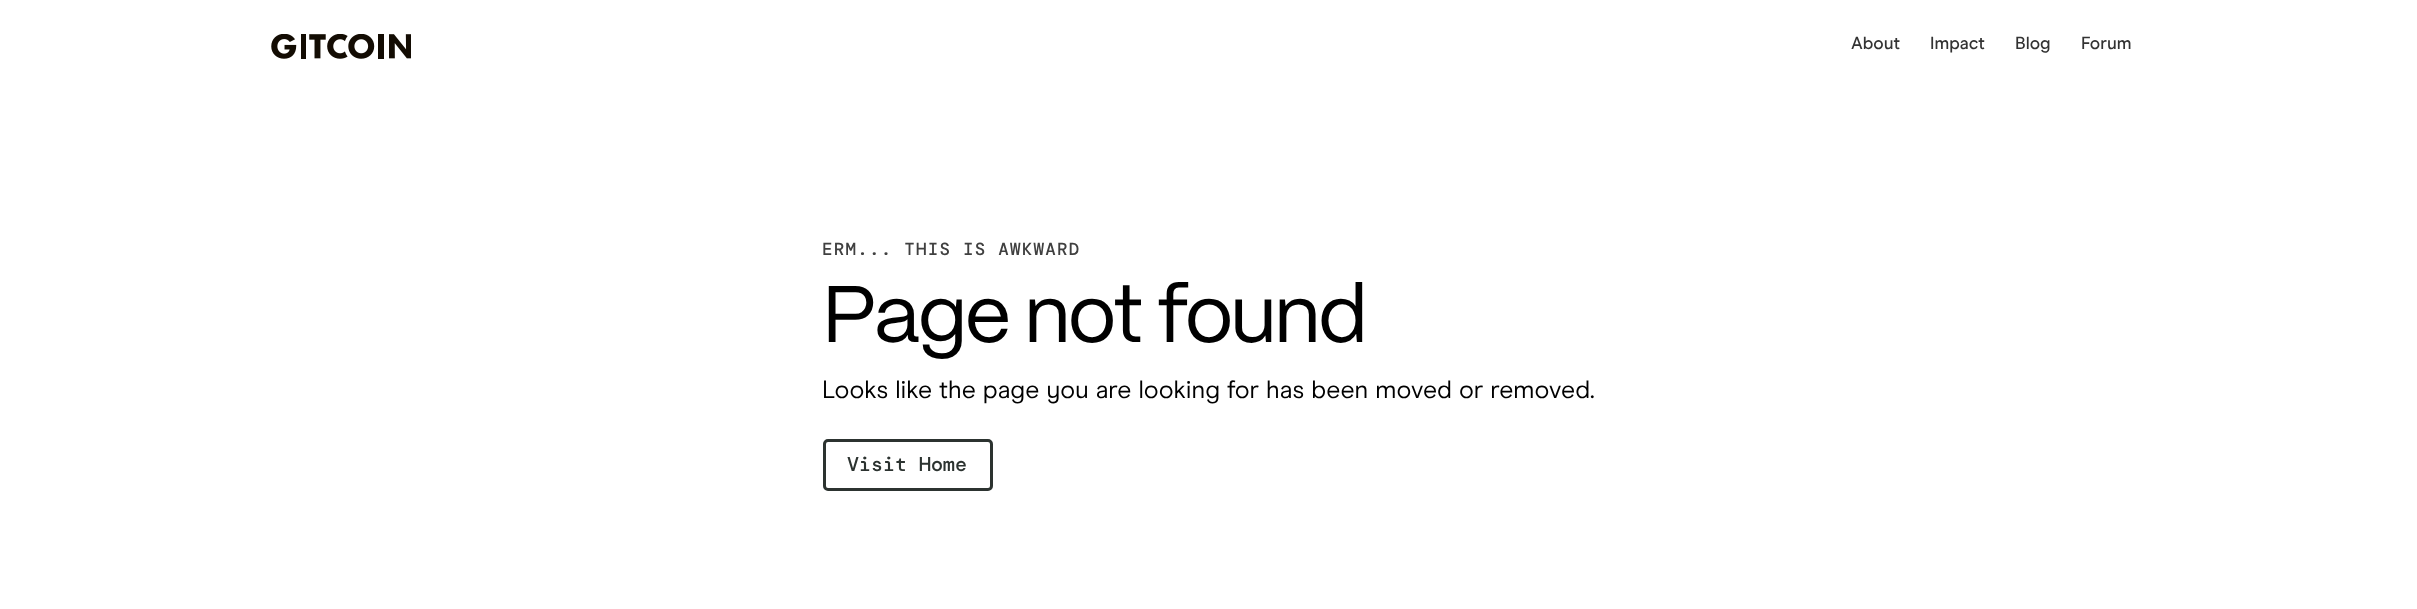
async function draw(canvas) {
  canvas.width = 2417;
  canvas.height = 609;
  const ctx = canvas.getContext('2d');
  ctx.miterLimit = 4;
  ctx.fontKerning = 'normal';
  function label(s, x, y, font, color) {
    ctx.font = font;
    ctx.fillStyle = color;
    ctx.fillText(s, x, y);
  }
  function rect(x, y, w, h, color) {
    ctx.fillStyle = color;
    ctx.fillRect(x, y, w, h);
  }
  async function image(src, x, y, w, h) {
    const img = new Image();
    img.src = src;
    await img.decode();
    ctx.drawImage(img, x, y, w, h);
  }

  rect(0, 0, 2417, 609, '#fff');
  await image('assets/img1.png', 271, 34, 140, 25);
  label('About', 1851, 49, '500 17.5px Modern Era', '#333');
  label('Impact', 1930, 49, '500 17.5px Modern Era', '#333');
  label('Blog', 2015, 49, '500 17.5px Modern Era', '#333');
  label('Forum', 2081, 49, '500 17.5px Modern Era', '#333');
  ctx.letterSpacing = '1.25px';
  label('ERM... THIS IS AWKWARD', 822, 255, '500 17.5px DM Mono', '#404040');
  ctx.letterSpacing = '-2.4px';
  label('Page not found', 822, 342, '80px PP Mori', '#000');
  ctx.letterSpacing = '0px';
  label('Looks like the page you are looking for has been moved or removed.', 822, 398, '25px Modern Era', '#000');
  ctx.beginPath();
  ctx.roundRect(824.5, 440.5, 167, 49, 3.5);
  ctx.strokeStyle = '#2c3330';
  ctx.lineWidth = 3;
  ctx.stroke();
  label('Visit Home', 847, 471, '500 20px DM Mono', '#2c3330');
}

draw(document.querySelector('canvas'));
